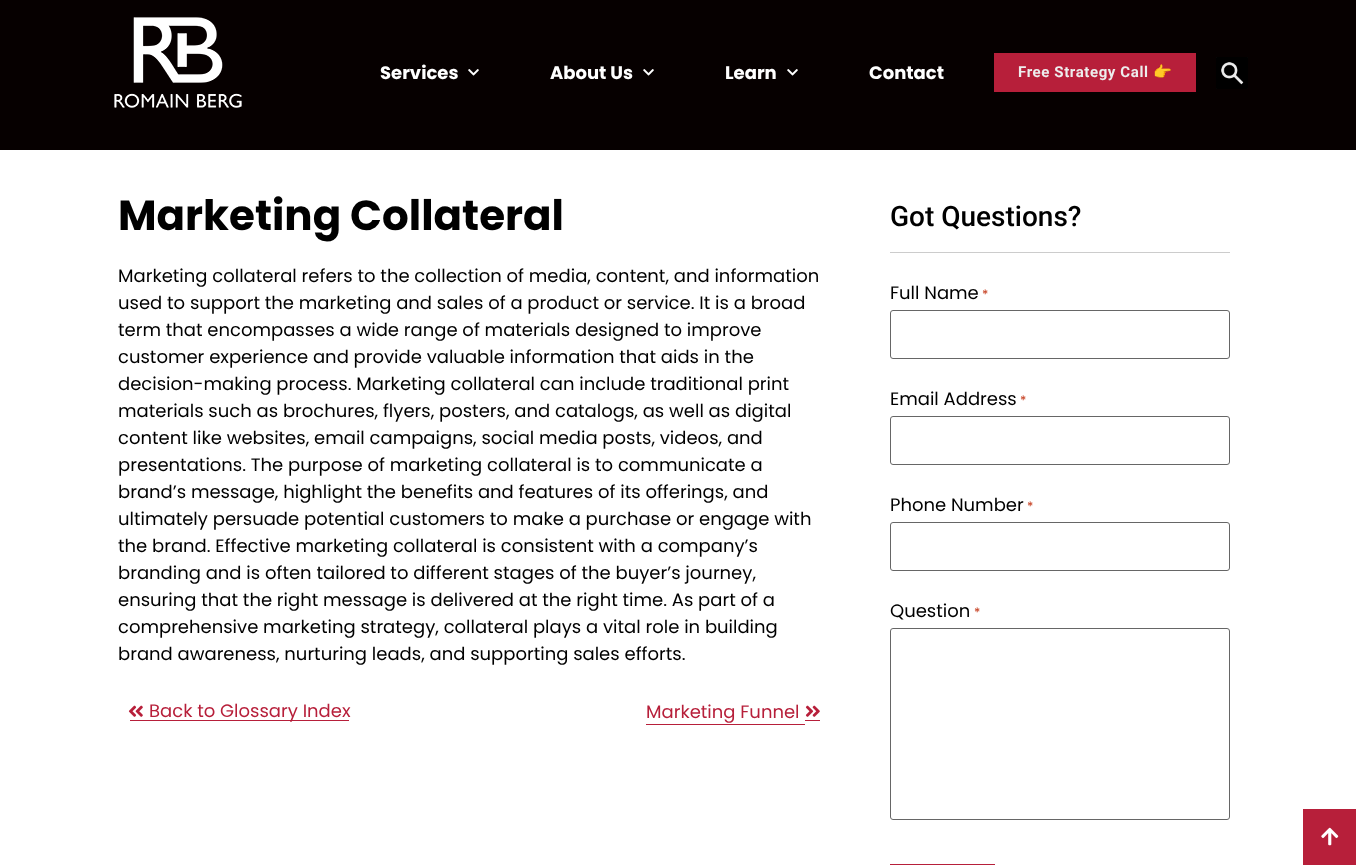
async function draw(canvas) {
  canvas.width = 1356;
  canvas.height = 865;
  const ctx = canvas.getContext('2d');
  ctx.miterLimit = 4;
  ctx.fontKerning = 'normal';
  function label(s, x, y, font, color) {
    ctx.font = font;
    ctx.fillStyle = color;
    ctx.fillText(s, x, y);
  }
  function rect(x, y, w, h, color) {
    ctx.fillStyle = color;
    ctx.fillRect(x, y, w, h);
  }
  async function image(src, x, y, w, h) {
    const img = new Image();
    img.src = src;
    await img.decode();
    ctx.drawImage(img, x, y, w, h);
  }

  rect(0, 0, 1356, 865, '#fff');
  rect(0, 0, 1356, 150, '#060000');
  await image('assets/img1.png', 114, 17, 128, 91);
  label('Services', 380, 79, 'bold 18px Poppins', '#fff');
  await image('assets/img2.png', 468, 69, 11, 7);
  label('About Us', 550, 79, 'bold 18px Poppins', '#fff');
  await image('assets/img2.png', 643, 69, 11, 7);
  label('Learn', 725, 79, 'bold 18px Poppins', '#fff');
  await image('assets/img2.png', 787, 69, 11, 7);
  label('Contact', 869, 79, 'bold 18px Poppins', '#fff');
  rect(994, 53, 202, 39, '#b71f3a');
  ctx.letterSpacing = '0.6px';
  label('Free Strategy Call', 1018, 77, 'bold 15px Roboto', '#ededed');
  label('👉', 1153, 77, 'bold 15px Noto Color Emoji', '#ededed');
  await image('assets/img3.png', 1216, 57, 32, 32);
  ctx.letterSpacing = '0px';
  label('Marketing Collateral', 118, 230, 'bold 42px Poppins', '#000');
  label('Marketing collateral refers to the collection of media, content, and information', 118, 282, '18px Poppins', '#000');
  label('used to support the marketing and sales of a product or service. It is a broad', 118, 309, '18px Poppins', '#000');
  label('term that encompasses a wide range of materials designed to improve', 118, 336, '18px Poppins', '#000');
  label('customer experience and provide valuable information that aids in the', 118, 363, '18px Poppins', '#000');
  label('decision-making process. Marketing collateral can include traditional print', 118, 390, '18px Poppins', '#000');
  label('materials such as brochures, flyers, posters, and catalogs, as well as digital', 118, 417, '18px Poppins', '#000');
  label('content like websites, email campaigns, social media posts, videos, and', 118, 444, '18px Poppins', '#000');
  label('presentations. The purpose of marketing collateral is to communicate a', 118, 471, '18px Poppins', '#000');
  label('brand’s message, highlight the benefits and features of its offerings, and', 118, 498, '18px Poppins', '#000');
  label('ultimately persuade potential customers to make a purchase or engage with', 118, 525, '18px Poppins', '#000');
  label('the brand. Effective marketing collateral is consistent with a company’s', 118, 552, '18px Poppins', '#000');
  label('branding and is often tailored to different stages of the buyer’s journey,', 118, 579, '18px Poppins', '#000');
  label('ensuring that the right message is delivered at the right time. As part of a', 118, 606, '18px Poppins', '#000');
  label('comprehensive marketing strategy, collateral plays a vital role in building', 118, 633, '18px Poppins', '#000');
  label('brand awareness, nurturing leads, and supporting sales efforts.', 118, 660, '18px Poppins', '#000');
  rect(130, 720, 219, 1, '#b71f3a');
  await image('assets/img4.png', 128, 705, 15, 12);
  label('Back to Glossary Index', 149, 717, '18px Poppins', '#b71f3a');
  rect(646, 724, 159, 1, '#b71f3a');
  rect(805, 720, 15, 1, '#b71f3a');
  label('Marketing Funnel', 646, 718, '18px Poppins', '#b71f3a');
  await image('assets/img5.png', 805, 705, 15, 12);
  rect(890, 252, 340, 1, '#ccc');
  label('Got Questions?', 890, 226, '500 28px Roboto', '#000');
  label('Full Name', 890, 299, '18px Poppins', '#000');
  label('*', 982, 299, '13px Poppins', '#c02b0a');
  ctx.beginPath();
  ctx.roundRect(890.5, 310.5, 339, 48, 2.5);
  ctx.strokeStyle = '#666';
  ctx.stroke();
  label('Email Address', 890, 405, '18px Poppins', '#000');
  label('*', 1020, 405, '13px Poppins', '#c02b0a');
  ctx.beginPath();
  ctx.roundRect(890.5, 416.5, 339, 48, 2.5);
  ctx.stroke();
  label('Phone Number', 890, 511, '18px Poppins', '#000');
  label('*', 1027, 511, '13px Poppins', '#c02b0a');
  ctx.beginPath();
  ctx.roundRect(890.5, 522.5, 339, 48, 2.5);
  ctx.stroke();
  label('Question', 890, 617, '18px Poppins', '#000');
  label('*', 974, 617, '13px Poppins', '#c02b0a');
  ctx.beginPath();
  ctx.roundRect(890.5, 628.5, 339, 191, 2.5);
  ctx.stroke();
  rect(890, 864, 105, 1, '#b71f3a');
  rect(1303, 809, 53, 56, '#b71f3a');
  await image('assets/img6.png', 1321, 827, 18, 19);
}

draw(document.querySelector('canvas'));
